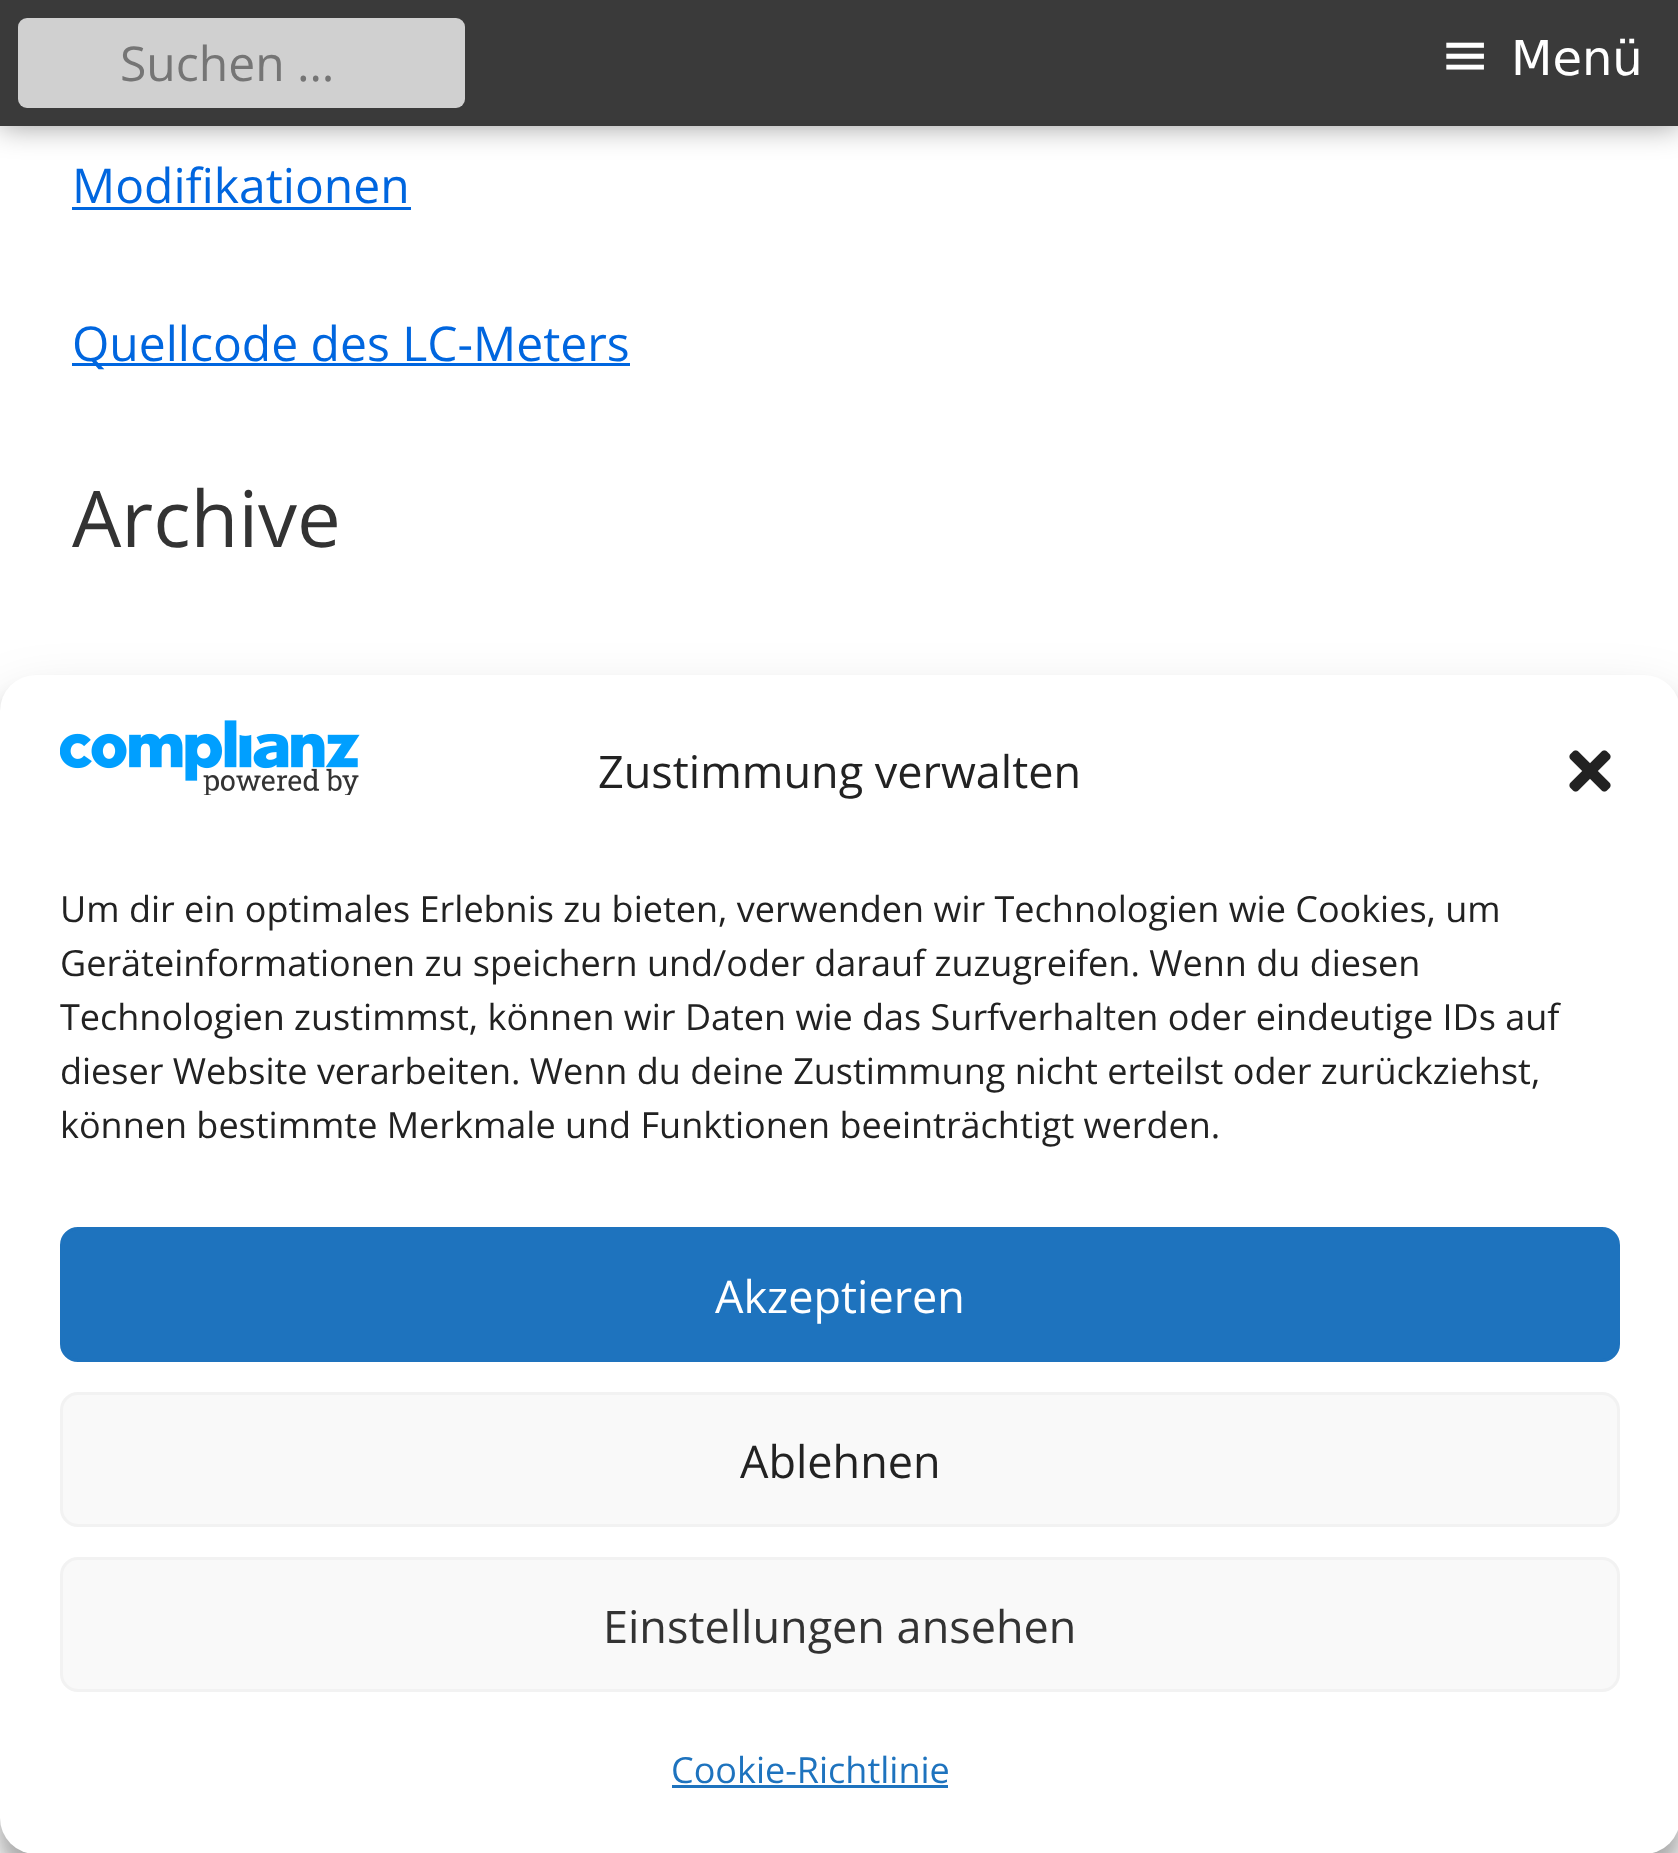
async function draw(canvas) {
  canvas.width = 1678;
  canvas.height = 1853;
  const ctx = canvas.getContext('2d');
  ctx.miterLimit = 4;
  ctx.fontKerning = 'normal';
  function label(s, x, y, font, color) {
    ctx.font = font;
    ctx.fillStyle = color;
    ctx.fillText(s, x, y);
  }
  function rect(x, y, w, h, color) {
    ctx.fillStyle = color;
    ctx.fillRect(x, y, w, h);
  }
  function roundedRect(x, y, w, h, r, color) {
    ctx.fillStyle = color;
    ctx.beginPath();
    ctx.roundRect(x, y, w, h, r);
    ctx.fill();
  }
  async function image(src, x, y, w, h) {
    const img = new Image();
    img.src = src;
    await img.decode();
    ctx.drawImage(img, x, y, w, h);
  }

  rect(0, 0, 1678, 1853, '#fff');
  ctx.fillStyle = '#00000066';
  ctx.filter = 'blur(15px)';
  ctx.beginPath();
  ctx.rect(0, 0, 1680, 126);
  ctx.fill();
  ctx.filter = 'none';
  rect(0, 0, 1678, 126, '#3a3a3a');
  roundedRect(18, 18, 447, 90, 9, '#d0d0d0');
  label('Suchen …', 120, 81, '48px Open Sans', '#757575');
  label('≡', 1440, 75, '60px DejaVu Sans', '#fff');
  label('Menü', 1511, 75, '48px DejaVu Sans', '#fff');
  label('Modifikationen', 72, 203, '48px Open Sans', '#0066df');
  rect(72, 207, 339, 3, '#0066df');
  rect(72, 363, 558, 3, '#0066df');
  label('Quellcode des LC-Meters', 72, 361, '48px Open Sans', '#0066df');
  label('Archive', 72, 547, '78px Open Sans', '#333');
  ctx.fillStyle = '#0000003b';
  ctx.filter = 'blur(9px)';
  ctx.beginPath();
  ctx.roundRect(0, 693, 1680, 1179, 36);
  ctx.fill();
  ctx.filter = 'none';
  ctx.fillStyle = '#00000030';
  ctx.filter = 'blur(30px)';
  ctx.beginPath();
  ctx.roundRect(0, 705, 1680, 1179, 36);
  ctx.fill();
  ctx.filter = 'none';
  roundedRect(0, 675, 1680, 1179, 36, '#fff');
  await image('assets/img1.png', 60, 720, 300, 75);
  label('Zustimmung verwalten', 598, 788, '45px Open Sans', '#222');
  await image('assets/img2.png', 1569, 750, 42, 42);
  label('Um dir ein optimales Erlebnis zu bieten, verwenden wir Technologien wie Cookies, um', 60, 922, '36px Open Sans', '#222');
  label('Geräteinformationen zu speichern und/oder darauf zuzugreifen. Wenn du diesen', 60, 976, '36px Open Sans', '#222');
  label('Technologien zustimmst, können wir Daten wie das Surfverhalten oder eindeutige IDs auf', 60, 1030, '36px Open Sans', '#222');
  label('dieser Website verarbeiten. Wenn du deine Zustimmung nicht erteilst oder zurückziehst,', 60, 1084, '36px Open Sans', '#222');
  label('können bestimmte Merkmale und Funktionen beeinträchtigt werden.', 60, 1138, '36px Open Sans', '#222');
  ctx.fillStyle = '#1e73be';
  ctx.beginPath();
  ctx.roundRect(61.5, 1228.5, 1557, 132, 16.5);
  ctx.fill();
  ctx.strokeStyle = '#1e73be';
  ctx.lineWidth = 3;
  ctx.stroke();
  label('Akzeptieren', 715, 1313, '45px Open Sans', '#fff');
  ctx.fillStyle = '#f9f9f9';
  ctx.beginPath();
  ctx.roundRect(61.5, 1393.5, 1557, 132, 16.5);
  ctx.fill();
  ctx.strokeStyle = '#f2f2f2';
  ctx.stroke();
  label('Ablehnen', 740, 1478, '45px Open Sans', '#222');
  ctx.fillStyle = '#f9f9f9';
  ctx.beginPath();
  ctx.roundRect(61.5, 1558.5, 1557, 132, 16.5);
  ctx.fill();
  ctx.stroke();
  label('Einstellungen ansehen', 603, 1643, '45px Open Sans', '#333');
  label('Cookie-Richtlinie', 671, 1783, '36px Open Sans', '#1e73be');
  rect(672, 1785, 276, 3, '#1e73be');
}

draw(document.querySelector('canvas'));
